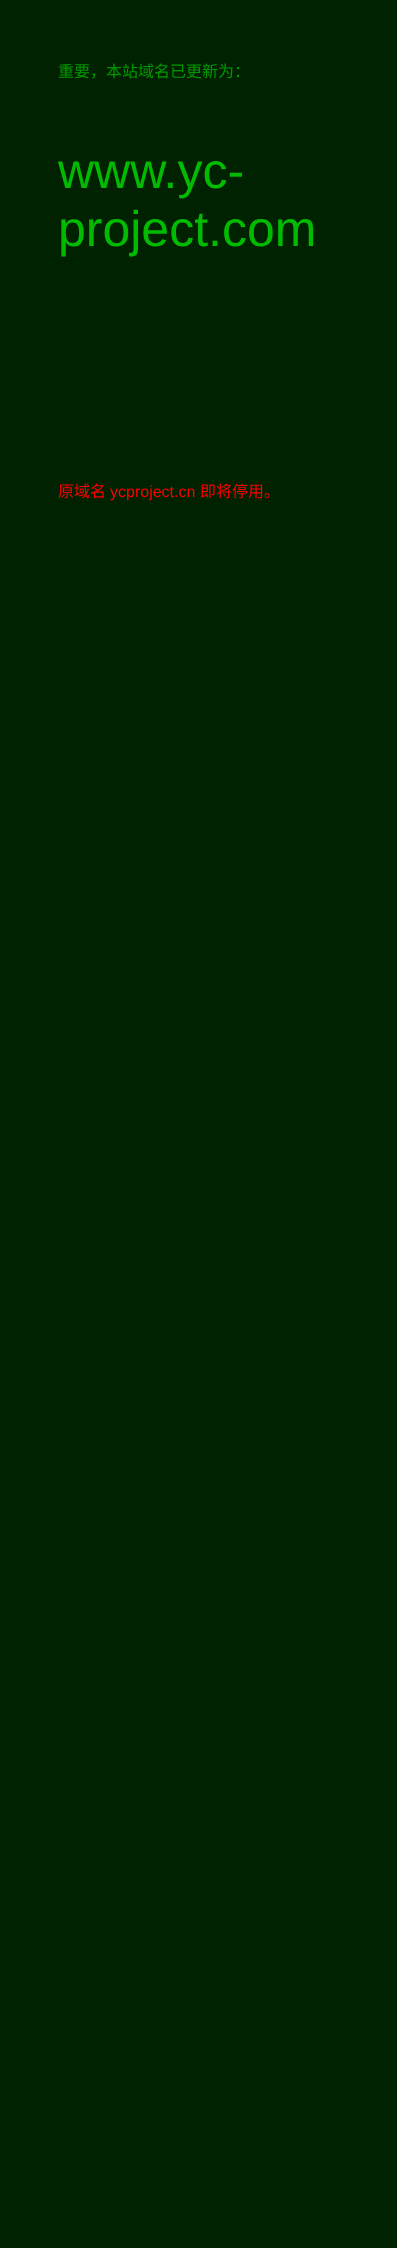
async function draw(canvas) {
  canvas.width = 397;
  canvas.height = 2248;
  const ctx = canvas.getContext('2d');
  ctx.miterLimit = 4;
  ctx.fontKerning = 'normal';
  function label(s, x, y, font, color) {
    ctx.font = font;
    ctx.fillStyle = color;
    ctx.fillText(s, x, y);
  }
  function rect(x, y, w, h, color) {
    ctx.fillStyle = color;
    ctx.fillRect(x, y, w, h);
  }

  rect(0, 0, 397, 2248, '#020');
  label('重要，本站域名已更新为：', 58, 77, '16px Noto Sans CJK SC', '#090');
  label('www.yc-', 58, 188, '50px Liberation Sans', '#0b0');
  label('project.com', 58, 246, '50px Liberation Sans', '#0b0');
  label('原域名', 58, 497, '16px Noto Sans CJK SC', '#f00');
  label('ycproject.cn', 110, 497, '16px Liberation Sans', '#f00');
  label('即将停用。', 200, 497, '16px Noto Sans CJK SC', '#f00');
}

draw(document.querySelector('canvas'));
